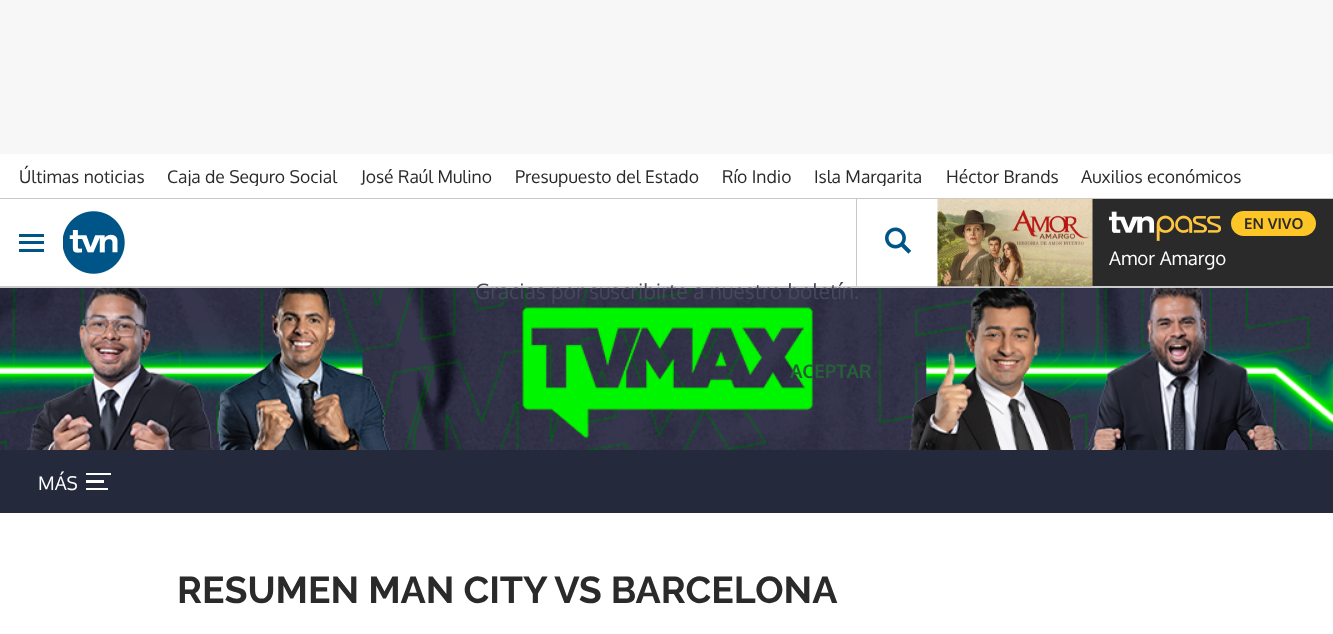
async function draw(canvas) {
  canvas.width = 1333;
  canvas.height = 634;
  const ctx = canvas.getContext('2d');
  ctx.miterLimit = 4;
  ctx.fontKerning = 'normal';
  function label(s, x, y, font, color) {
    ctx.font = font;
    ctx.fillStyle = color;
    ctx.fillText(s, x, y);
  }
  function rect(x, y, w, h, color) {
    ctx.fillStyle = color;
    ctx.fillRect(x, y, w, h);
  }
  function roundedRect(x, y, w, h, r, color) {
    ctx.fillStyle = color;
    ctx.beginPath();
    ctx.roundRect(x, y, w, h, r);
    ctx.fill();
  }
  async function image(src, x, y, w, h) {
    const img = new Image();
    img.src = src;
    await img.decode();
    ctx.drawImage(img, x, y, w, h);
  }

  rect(0, 0, 1333, 634, '#fff');
  rect(0, 0, 1333, 154, '#f7f7f7');
  rect(0, 198, 1333, 1, '#c7c7c7');
  label('Últimas noticias', 19, 183, '17.5px Oxygen', '#2a2a2a');
  ctx.save();
  ctx.beginPath();
  ctx.rect(19, 165, 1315, 21);
  ctx.clip();
  label('Caja de Seguro Social', 167, 183, '17.5px Oxygen', '#2a2a2a');
  ctx.restore();
  label('José Raúl Mulino', 361, 183, '17.5px Oxygen', '#2a2a2a');
  label('Presupuesto del Estado', 515, 183, '17.5px Oxygen', '#2a2a2a');
  label('Río Indio', 722, 183, '17.5px Oxygen', '#2a2a2a');
  ctx.save();
  ctx.beginPath();
  ctx.rect(19, 165, 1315, 21);
  ctx.clip();
  label('Isla Margarita', 814, 183, '17.5px Oxygen', '#2a2a2a');
  ctx.restore();
  label('Héctor Brands', 946, 183, '17.5px Oxygen', '#2a2a2a');
  label('Auxilios económicos', 1081, 183, '17.5px Oxygen', '#2a2a2a');
  rect(0, 286, 1333, 1, '#ccc');
  rect(19, 234, 25, 3, '#058');
  rect(19, 241, 25, 3, '#058');
  rect(19, 249, 25, 3, '#058');
  await image('assets/img1.png', 63, 211, 62, 63);
  rect(856, 199, 1, 87, '#c7c7c7');
  await image('assets/img2.png', 885, 227, 27, 27);
  rect(1092, 199, 241, 87, '#2a2a2a');
  await image('assets/img3.png', 937, 198, 156, 89);
  await image('assets/img4.png', 1109, 211, 112, 30);
  roundedRect(1231, 211, 85, 25, 12.5, '#fec526');
  label('EN VIVO', 1244, 229, 'bold 15px Oxygen', '#2a2a2a');
  label('Amor Amargo', 1109, 265, '18.75px Oxygen', '#fff');
  await image('assets/img5.png', 0, 287, 1333, 163);
  rect(0, 450, 1333, 63, '#24293b');
  label('MÁS', 38, 490, '18.75px Oxygen', '#fff');
  rect(86, 473, 25, 2, '#fff');
  rect(86, 480, 18, 3, '#fff');
  rect(86, 488, 22, 2, '#fff');
  label('Gracias por suscribirte a nuestro boletín.', 475, 299, '21.25px Oxygen', '#46495a');
  label('ACEPTAR', 790, 378, 'bold 18.75px Oxygen', '#275f38');
  label('RESUMEN MAN CITY VS BARCELONA', 177, 603, '100 37.5px Raleway', '#2a2a2a');
}

draw(document.querySelector('canvas'));
